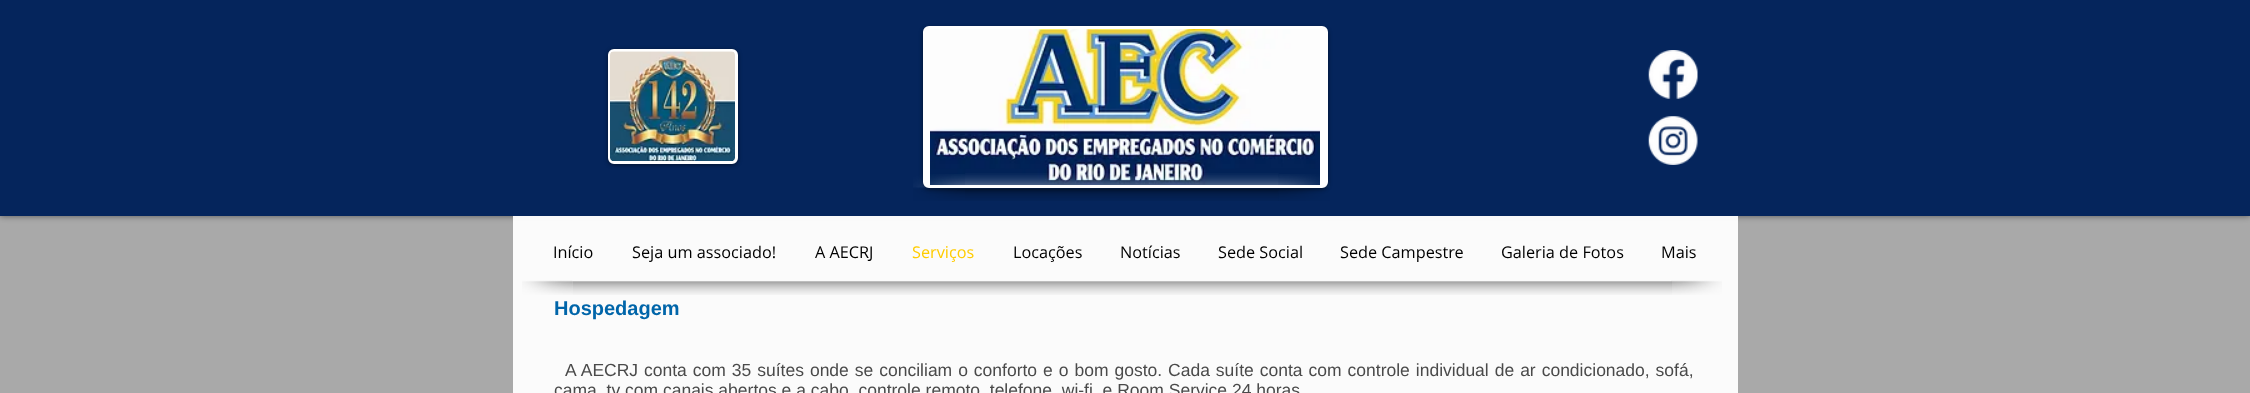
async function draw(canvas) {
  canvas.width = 2250;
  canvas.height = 393;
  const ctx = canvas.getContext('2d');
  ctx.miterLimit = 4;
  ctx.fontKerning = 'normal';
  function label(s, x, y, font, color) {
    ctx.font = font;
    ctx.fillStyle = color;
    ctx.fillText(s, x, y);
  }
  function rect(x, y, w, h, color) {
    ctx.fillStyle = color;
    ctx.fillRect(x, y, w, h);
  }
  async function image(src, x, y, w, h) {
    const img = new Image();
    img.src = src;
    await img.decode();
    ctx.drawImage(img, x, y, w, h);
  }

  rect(0, 0, 2250, 393, '#a9a9a9');
  ctx.fillStyle = '#00000080';
  ctx.filter = 'blur(3px)';
  ctx.beginPath();
  ctx.rect(0, 0, 2250, 216);
  ctx.fill();
  ctx.filter = 'none';
  rect(0, 0, 2250, 216, '#05255c');
  ctx.fillStyle = '#00000080';
  ctx.filter = 'blur(2px)';
  ctx.beginPath();
  ctx.roundRect(608, 50, 130, 115, 6);
  ctx.fill();
  ctx.filter = 'none';
  ctx.fillStyle = '#fff';
  ctx.beginPath();
  ctx.roundRect(609.5, 50.5, 127, 112, 4.5);
  ctx.fill();
  ctx.strokeStyle = '#fff';
  ctx.lineWidth = 3;
  ctx.stroke();
  await image('assets/img1.png', 610, 51, 125, 110);
  ctx.fillStyle = '#00000080';
  ctx.filter = 'blur(2px)';
  ctx.beginPath();
  ctx.roundRect(923, 28, 405, 161, 6);
  ctx.fill();
  ctx.filter = 'none';
  ctx.fillStyle = '#fff';
  ctx.beginPath();
  ctx.roundRect(924.5, 27.5, 402, 159, 4.5);
  ctx.fill();
  ctx.stroke();
  await image('assets/img2.png', 930, 29, 390, 156);
  await image('assets/img3.png', 1648, 50, 50, 49);
  await image('assets/img4.png', 1648, 116, 50, 49);
  await image('assets/img5.png', 965, 173, 314, 28);
  await image('assets/img6.png', 913, 174, 52, 27);
  await image('assets/img7.png', 1278, 174, 52, 27);
  rect(513, 216, 1225, 177, '#fffffff2');
  label('Início', 553, 258, '16.25px Open Sans', '#000');
  label('Seja um associado!', 632, 258, '16.25px Open Sans', '#000');
  label('A AECRJ', 815, 258, '16.25px Open Sans', '#000');
  label('Serviços', 912, 258, '16.25px Open Sans', '#fc0');
  label('Locações', 1013, 258, '16.25px Open Sans', '#000');
  label('Notícias', 1120, 258, '16.25px Open Sans', '#000');
  label('Sede Social', 1218, 258, '16.25px Open Sans', '#000');
  label('Sede Campestre', 1340, 258, '16.25px Open Sans', '#000');
  label('Galeria de Fotos', 1501, 258, '16.25px Open Sans', '#000');
  label('Mais', 1661, 258, '16.25px Open Sans', '#000');
  await image('assets/img8.png', 572, 281, 1100, 14);
  await image('assets/img9.png', 522, 280, 51, 15);
  await image('assets/img10.png', 1671, 280, 51, 15);
  label('Hospedagem', 554, 315, 'bold 20px Liberation Sans', '#0065a9');
  ctx.wordSpacing = '1.1px';
  label('A AECRJ conta com 35 suítes onde se conciliam o conforto e o bom gosto. Cada suíte conta com controle individual de ar condicionado, sofá,', 565, 376, '17.5px Liberation Sans', '#4a4a4a');
  ctx.wordSpacing = '0px';
  label('cama, tv com canais abertos e a cabo, controle remoto, telefone, wi-fi, e Room Service 24 horas', 554, 396, '17.5px Liberation Sans', '#4a4a4a');
}

draw(document.querySelector('canvas'));
